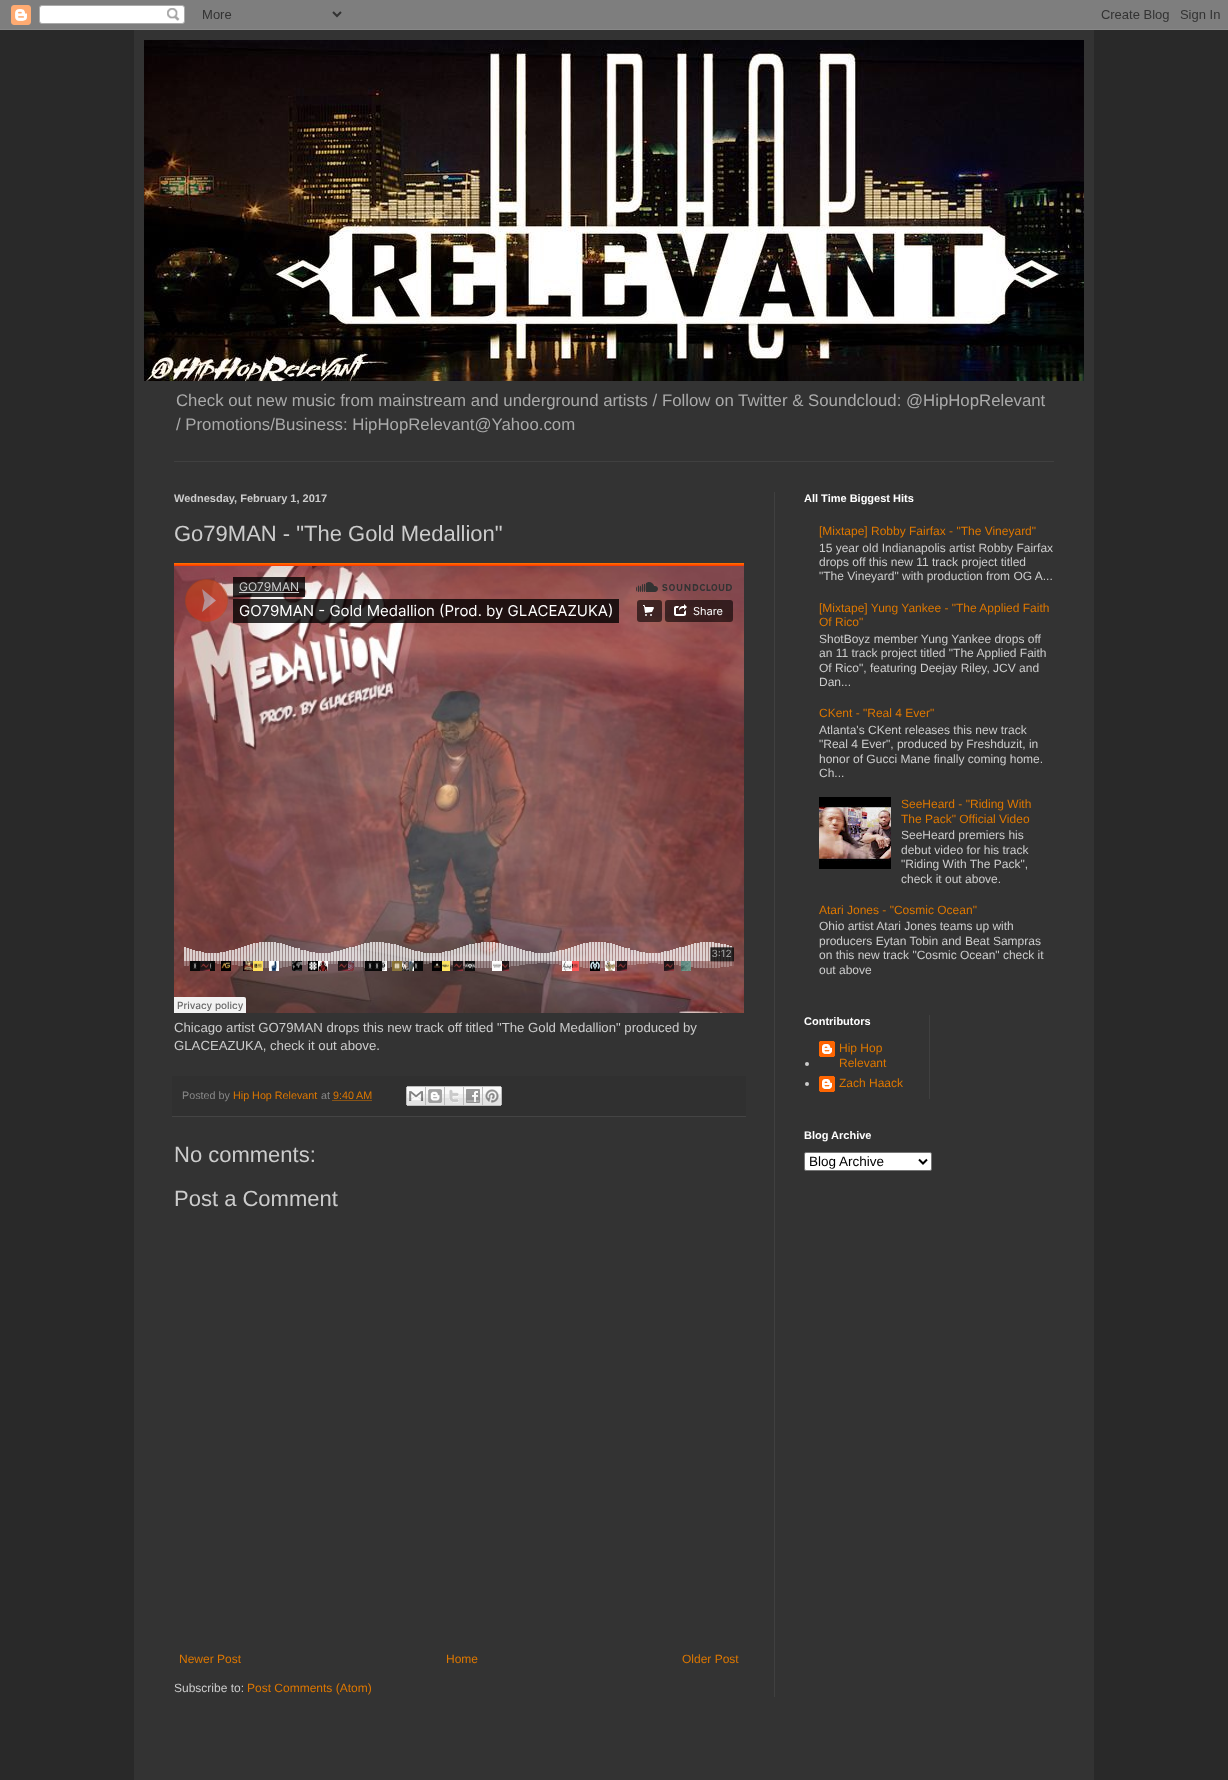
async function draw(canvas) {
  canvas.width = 1228;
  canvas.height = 1780;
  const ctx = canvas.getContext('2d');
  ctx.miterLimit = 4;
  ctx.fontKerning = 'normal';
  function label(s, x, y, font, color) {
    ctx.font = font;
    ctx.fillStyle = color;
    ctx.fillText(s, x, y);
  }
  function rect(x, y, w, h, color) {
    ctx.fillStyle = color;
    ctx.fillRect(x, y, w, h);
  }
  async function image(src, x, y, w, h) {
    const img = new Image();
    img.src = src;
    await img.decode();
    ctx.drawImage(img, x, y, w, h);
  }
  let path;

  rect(0, 0, 1228, 1780, '#292929');
  await image('assets/img1.png', 0, 0, 1228, 30);
  rect(134, 30, 960, 1750, '#333');
  await image('assets/img2.png', 144, 40, 940, 341);
  label('Check out new music from mainstream and underground artists / Follow on Twitter & Soundcloud: @HipHopRelevant', 176, 406, '16.8px Liberation Sans', '#aaa');
  label('/ Promotions/Business: HipHopRelevant@Yahoo.com', 176, 430, '16.8px Liberation Sans', '#aaa');
  rect(174, 461, 880, 1, '#404040');
  rect(774, 492, 1, 1205, '#404040');
  label('Wednesday, February 1, 2017', 174, 502, 'bold 11px Liberation Sans', '#ccc');
  label('Go79MAN - "The Gold Medallion"', 174, 541, '22px Liberation Sans', '#ccc');
  await image('assets/img3.png', 174, 563, 570, 450);
  label('Chicago artist GO79MAN drops this new track off titled "The Gold Medallion" produced by', 174, 1032, '13.2px Liberation Sans', '#ccc');
  label('GLACEAZUKA, check it out above.', 174, 1050, '13.2px Liberation Sans', '#ccc');
  rect(172, 1076, 574, 40, '#303030');
  rect(172, 1116, 574, 1, '#444');
  label('Posted by', 182, 1099, '10.75px Liberation Sans', '#888');
  label('Hip Hop Relevant', 233, 1099, '10.75px Liberation Sans', '#d70');
  label('at', 321, 1099, '10.75px Liberation Sans', '#888');
  label('9:40 AM', 333, 1099, '10.75px Liberation Sans', '#d70');
  path = new Path2D('M332.5 1100.5H372');
  ctx.strokeStyle = '#d70';
  ctx.setLineDash([1, 1]);
  ctx.stroke(path);
  await image('assets/img4.png', 406, 1086, 20, 20);
  await image('assets/img5.png', 426, 1086, 19, 20);
  await image('assets/img6.png', 445, 1086, 19, 20);
  await image('assets/img7.png', 464, 1086, 19, 20);
  await image('assets/img8.png', 483, 1086, 19, 20);
  label('No comments:', 174, 1162, '22px Liberation Sans', '#ccc');
  label('Post a Comment', 174, 1206, '22px Liberation Sans', '#ccc');
  label('Newer Post', 179, 1663, '12px Liberation Sans', '#d70');
  label('Home', 446, 1663, '12px Liberation Sans', '#d70');
  label('Older Post', 682, 1663, '12px Liberation Sans', '#d70');
  label('Subscribe to:', 174, 1692, '12px Liberation Sans', '#ccc');
  label('Post Comments (Atom)', 247, 1692, '12px Liberation Sans', '#d70');
  label('All Time Biggest Hits', 804, 502, 'bold 11px Liberation Sans', '#fff');
  label('[Mixtape] Robby Fairfax - "The Vineyard"', 819, 535, '12px Liberation Sans', '#d70');
  label('15 year old Indianapolis artist Robby Fairfax', 819, 552, '12px Liberation Sans', '#ccc');
  label('drops off this new 11 track project titled', 819, 566, '12px Liberation Sans', '#ccc');
  label('"The Vineyard" with production from OG A...', 819, 580, '12px Liberation Sans', '#ccc');
  label('[Mixtape] Yung Yankee - "The Applied Faith', 819, 612, '12px Liberation Sans', '#d70');
  label('Of Rico"', 819, 626, '12px Liberation Sans', '#d70');
  label('ShotBoyz member Yung Yankee drops off', 819, 643, '12px Liberation Sans', '#ccc');
  label('an 11 track project titled "The Applied Faith', 819, 657, '12px Liberation Sans', '#ccc');
  label('Of Rico", featuring Deejay Riley, JCV and', 819, 672, '12px Liberation Sans', '#ccc');
  label('Dan...', 819, 686, '12px Liberation Sans', '#ccc');
  label('CKent - "Real 4 Ever"', 819, 717, '12px Liberation Sans', '#d70');
  label('Atlanta\'s CKent releases this new track', 819, 734, '12px Liberation Sans', '#ccc');
  label('"Real 4 Ever", produced by Freshduzit, in', 819, 748, '12px Liberation Sans', '#ccc');
  label('honor of Gucci Mane finally coming home.', 819, 763, '12px Liberation Sans', '#ccc');
  label('Ch...', 819, 777, '12px Liberation Sans', '#ccc');
  await image('assets/img9.png', 819, 797, 72, 72);
  label('SeeHeard - "Riding With', 901, 808, '12px Liberation Sans', '#d70');
  label('The Pack" Official Video', 901, 823, '12px Liberation Sans', '#d70');
  label('SeeHeard premiers his', 901, 839, '12px Liberation Sans', '#ccc');
  label('debut video for his track', 901, 854, '12px Liberation Sans', '#ccc');
  label('"Riding With The Pack",', 901, 868, '12px Liberation Sans', '#ccc');
  label('check it out above.', 901, 883, '12px Liberation Sans', '#ccc');
  label('Atari Jones - "Cosmic Ocean"', 819, 914, '12px Liberation Sans', '#d70');
  label('Ohio artist Atari Jones teams up with', 819, 930, '12px Liberation Sans', '#ccc');
  label('producers Eytan Tobin and Beat Sampras', 819, 945, '12px Liberation Sans', '#ccc');
  label('on this new track "Cosmic Ocean" check it', 819, 959, '12px Liberation Sans', '#ccc');
  label('out above', 819, 974, '12px Liberation Sans', '#ccc');
  label('Contributors', 804, 1025, 'bold 11px Liberation Sans', '#fff');
  ctx.fillStyle = '#ccc';
  ctx.beginPath();
  ctx.arc(807, 1064, 2, 0, 2 * Math.PI);
  ctx.fill();
  await image('assets/img10.png', 819, 1041, 16, 16);
  label('Hip Hop', 839, 1052, '12px Liberation Sans', '#d70');
  label('Relevant', 839, 1067, '12px Liberation Sans', '#d70');
  ctx.fillStyle = '#ccc';
  ctx.beginPath();
  ctx.arc(807, 1084, 2, 0, 2 * Math.PI);
  ctx.fill();
  await image('assets/img10.png', 819, 1076, 16, 16);
  label('Zach Haack', 839, 1087, '12px Liberation Sans', '#d70');
  rect(929, 1015, 1, 84, '#404040');
  label('Blog Archive', 804, 1139, 'bold 11px Liberation Sans', '#fff');
  ctx.beginPath();
  ctx.roundRect(804.5, 1152.5, 127, 18, 1.5);
  ctx.fill();
  ctx.strokeStyle = '#767676';
  ctx.setLineDash([]);
  ctx.stroke();
  path = new Path2D('M919 1159.5L923 1163.5L927 1159.5');
  ctx.strokeStyle = '#000';
  ctx.lineWidth = 2;
  ctx.stroke(path);
  label('Blog Archive', 809, 1166, '13.5px Liberation Sans', '#000');
}

draw(document.querySelector('canvas'));
